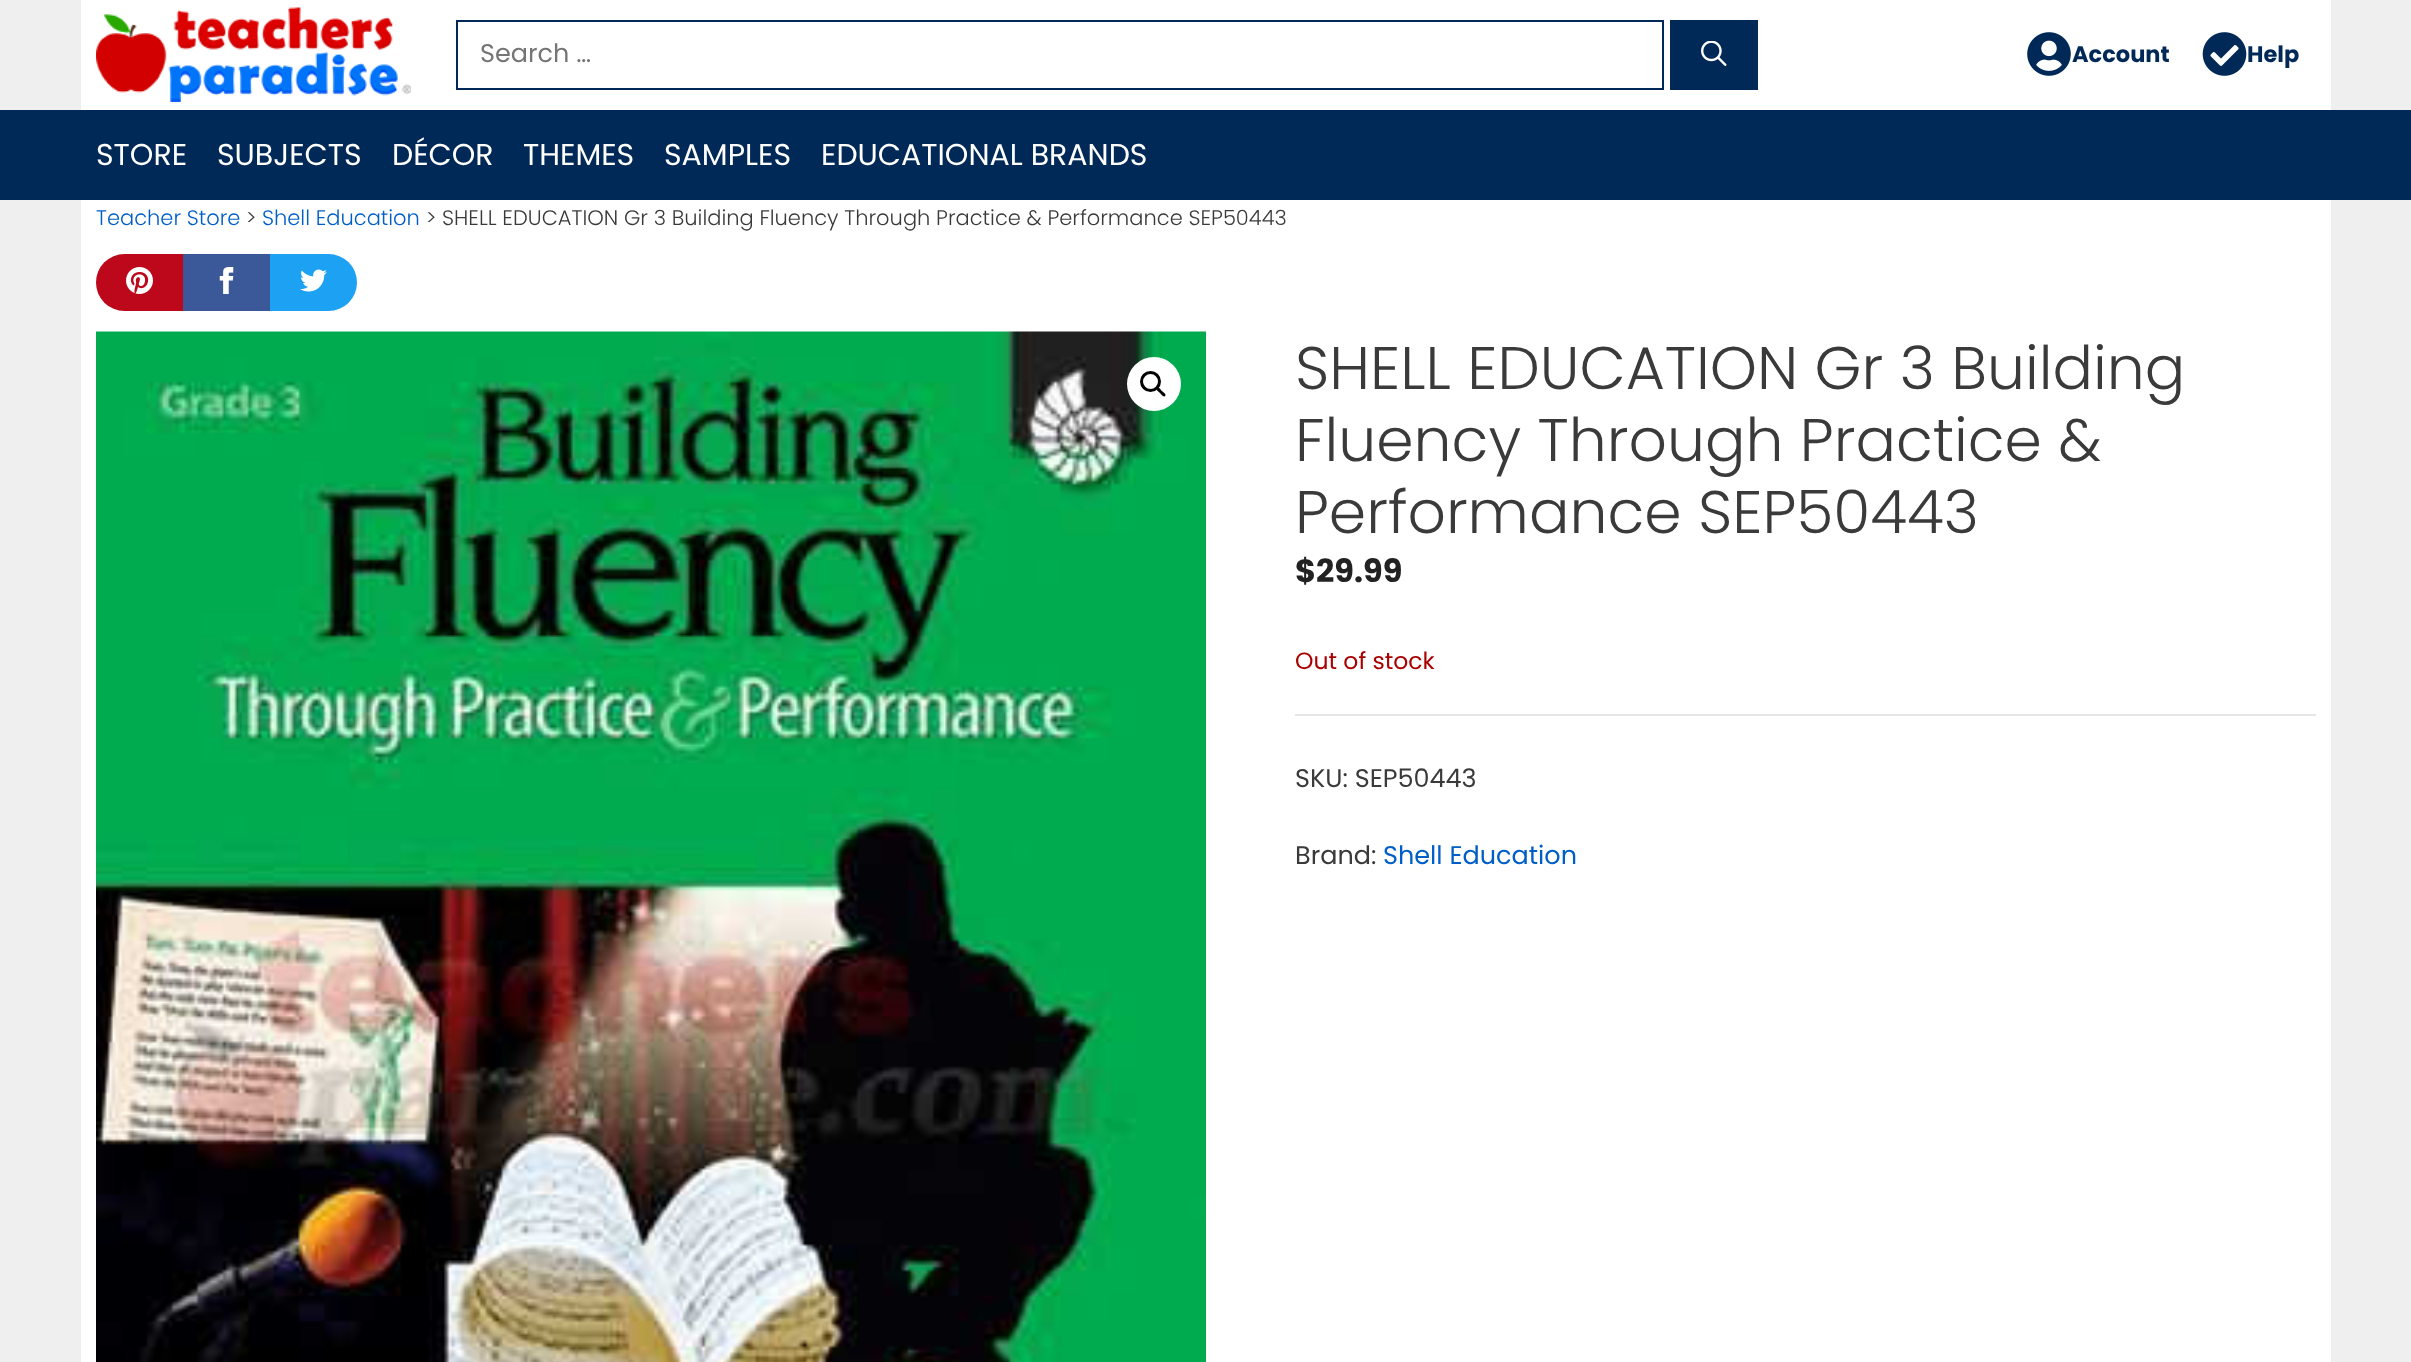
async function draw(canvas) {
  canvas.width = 2411;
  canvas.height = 1362;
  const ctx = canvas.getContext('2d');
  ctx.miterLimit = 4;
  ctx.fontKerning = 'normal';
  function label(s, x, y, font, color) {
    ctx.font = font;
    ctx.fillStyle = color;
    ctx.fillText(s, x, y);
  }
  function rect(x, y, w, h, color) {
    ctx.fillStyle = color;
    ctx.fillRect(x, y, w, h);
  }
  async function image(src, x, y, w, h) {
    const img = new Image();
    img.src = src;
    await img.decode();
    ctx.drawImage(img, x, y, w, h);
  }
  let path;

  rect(0, 0, 2411, 1362, '#efefef');
  rect(81, 0, 2250, 110, '#fff');
  await image('assets/img1.png', 96, 7, 315, 95);
  ctx.strokeStyle = '#002957';
  ctx.lineWidth = 2;
  ctx.strokeRect(457, 21, 1206, 68);
  label('Search …', 480, 62, '25.5px Poppins', '#757575');
  rect(1670, 20, 88, 70, '#002957');
  await image('assets/img2.png', 1701, 41, 26, 25);
  await image('assets/img3.png', 2027, 32, 44, 44);
  label('Account', 2072, 62, 'bold 22.5px Poppins', '#002957');
  await image('assets/img4.png', 2202, 32, 45, 44);
  label('Help', 2247, 62, 'bold 22.5px Poppins', '#002957');
  rect(0, 110, 2411, 90, '#002957');
  label('STORE', 96, 165, '30px Poppins', '#fff');
  label('SUBJECTS', 217, 165, '30px Poppins', '#fff');
  label('DÉCOR', 392, 165, '30px Poppins', '#fff');
  label('THEMES', 523, 165, '30px Poppins', '#fff');
  label('SAMPLES', 664, 165, '30px Poppins', '#fff');
  label('EDUCATIONAL BRANDS', 821, 165, '30px Poppins', '#fff');
  rect(81, 200, 2250, 1162, '#fff');
  label('Teacher Store', 96, 225, '300 21px Poppins', '#005ec8');
  label('>', 246, 225, '300 21px Poppins', '#3a3a3a');
  label('Shell Education', 262, 225, '300 21px Poppins', '#005ec8');
  label('> SHELL EDUCATION Gr 3 Building Fluency Through Practice & Performance SEP50443', 426, 225, '300 21px Poppins', '#3a3a3a');
  ctx.fillStyle = '#bd081c';
  ctx.beginPath();
  ctx.roundRect(96, 254, 87, 57, [28.5, 0, 0, 28.5]);
  ctx.fill();
  await image('assets/img5.png', 126, 267, 27, 27);
  rect(183, 254, 87, 57, '#3b5998');
  await image('assets/img6.png', 219, 267, 15, 27);
  ctx.fillStyle = '#1da1f2';
  ctx.beginPath();
  ctx.roundRect(270, 254, 87, 57, [0, 28.5, 28.5, 0]);
  ctx.fill();
  await image('assets/img7.png', 300, 269, 27, 23);
  await image('assets/img8.png', 96, 331, 1110, 1031);
  ctx.fillStyle = '#fff';
  ctx.beginPath();
  ctx.arc(1154, 384, 27, 0, 2 * Math.PI);
  ctx.fill();
  ctx.beginPath();
  ctx.arc(1150.5, 381.5, 9, 0, 2 * Math.PI);
  ctx.strokeStyle = '#000';
  ctx.lineWidth = 3;
  ctx.stroke();
  ctx.fillStyle = '#000';
  path = new Path2D('M1157 387.5C1158.5 386 1161 390 1162 391C1163 392 1167 394.5 1165 396C1163.5 398 1161 394 1160 393C1159 392 1155 389.5 1157 387.5Z');
  ctx.fill(path);
  label('SHELL EDUCATION Gr 3 Building', 1295, 389, '300 60px Poppins', '#3a3a3a');
  label('Fluency Through Practice &', 1295, 461, '300 60px Poppins', '#3a3a3a');
  label('Performance SEP50443', 1295, 533, '300 60px Poppins', '#3a3a3a');
  label('$29.99', 1295, 582, 'bold 32px Poppins', '#222');
  label('Out of stock', 1295, 669, '23.5px Poppins', '#a00');
  rect(1295, 714, 1021, 2, '#e6e6e6');
  label('SKU: SEP50443', 1295, 787, '25.5px Poppins', '#3a3a3a');
  label('Brand:', 1295, 864, '25.5px Poppins', '#3a3a3a');
  label('Shell Education', 1383, 864, '25.5px Poppins', '#005ec8');
}

draw(document.querySelector('canvas'));
